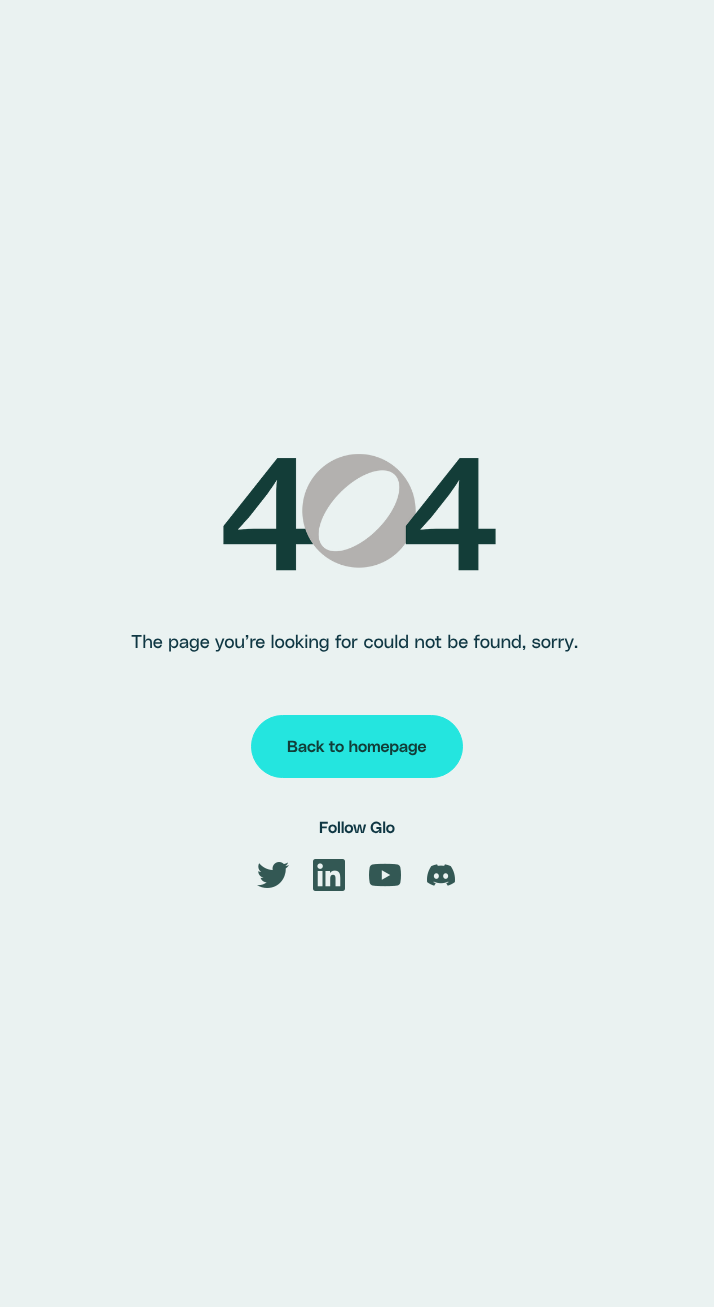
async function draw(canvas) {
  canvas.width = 714;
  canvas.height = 1307;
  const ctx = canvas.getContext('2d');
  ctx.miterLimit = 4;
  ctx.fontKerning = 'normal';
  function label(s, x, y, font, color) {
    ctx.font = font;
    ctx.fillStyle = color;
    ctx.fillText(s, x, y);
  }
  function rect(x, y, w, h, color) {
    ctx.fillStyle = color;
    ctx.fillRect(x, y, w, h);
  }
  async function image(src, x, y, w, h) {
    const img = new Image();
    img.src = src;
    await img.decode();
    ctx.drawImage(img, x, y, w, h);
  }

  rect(0, 0, 714, 1307, '#eaf2f1');
  await image('assets/img1.png', 223, 454, 273, 117);
  label('The page you’re looking for could not be found, sorry.', 131, 648, '18.4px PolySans', '#0f3743');
  ctx.fillStyle = '#24e5df';
  ctx.beginPath();
  ctx.roundRect(251.5, 715.5, 211, 62, 31);
  ctx.fill();
  ctx.strokeStyle = '#24e5df';
  ctx.stroke();
  label('Back to homepage', 287, 752, '600 16px PolySans', '#123d38');
  label('Follow Glo', 319, 833, '600 16px PolySans', '#0f3743');
  await image('assets/img2.png', 257, 862, 32, 26);
  await image('assets/img3.png', 313, 859, 32, 32);
  await image('assets/img4.png', 369, 863, 32, 24);
  await image('assets/img5.png', 427, 864, 28, 22);
}

draw(document.querySelector('canvas'));
